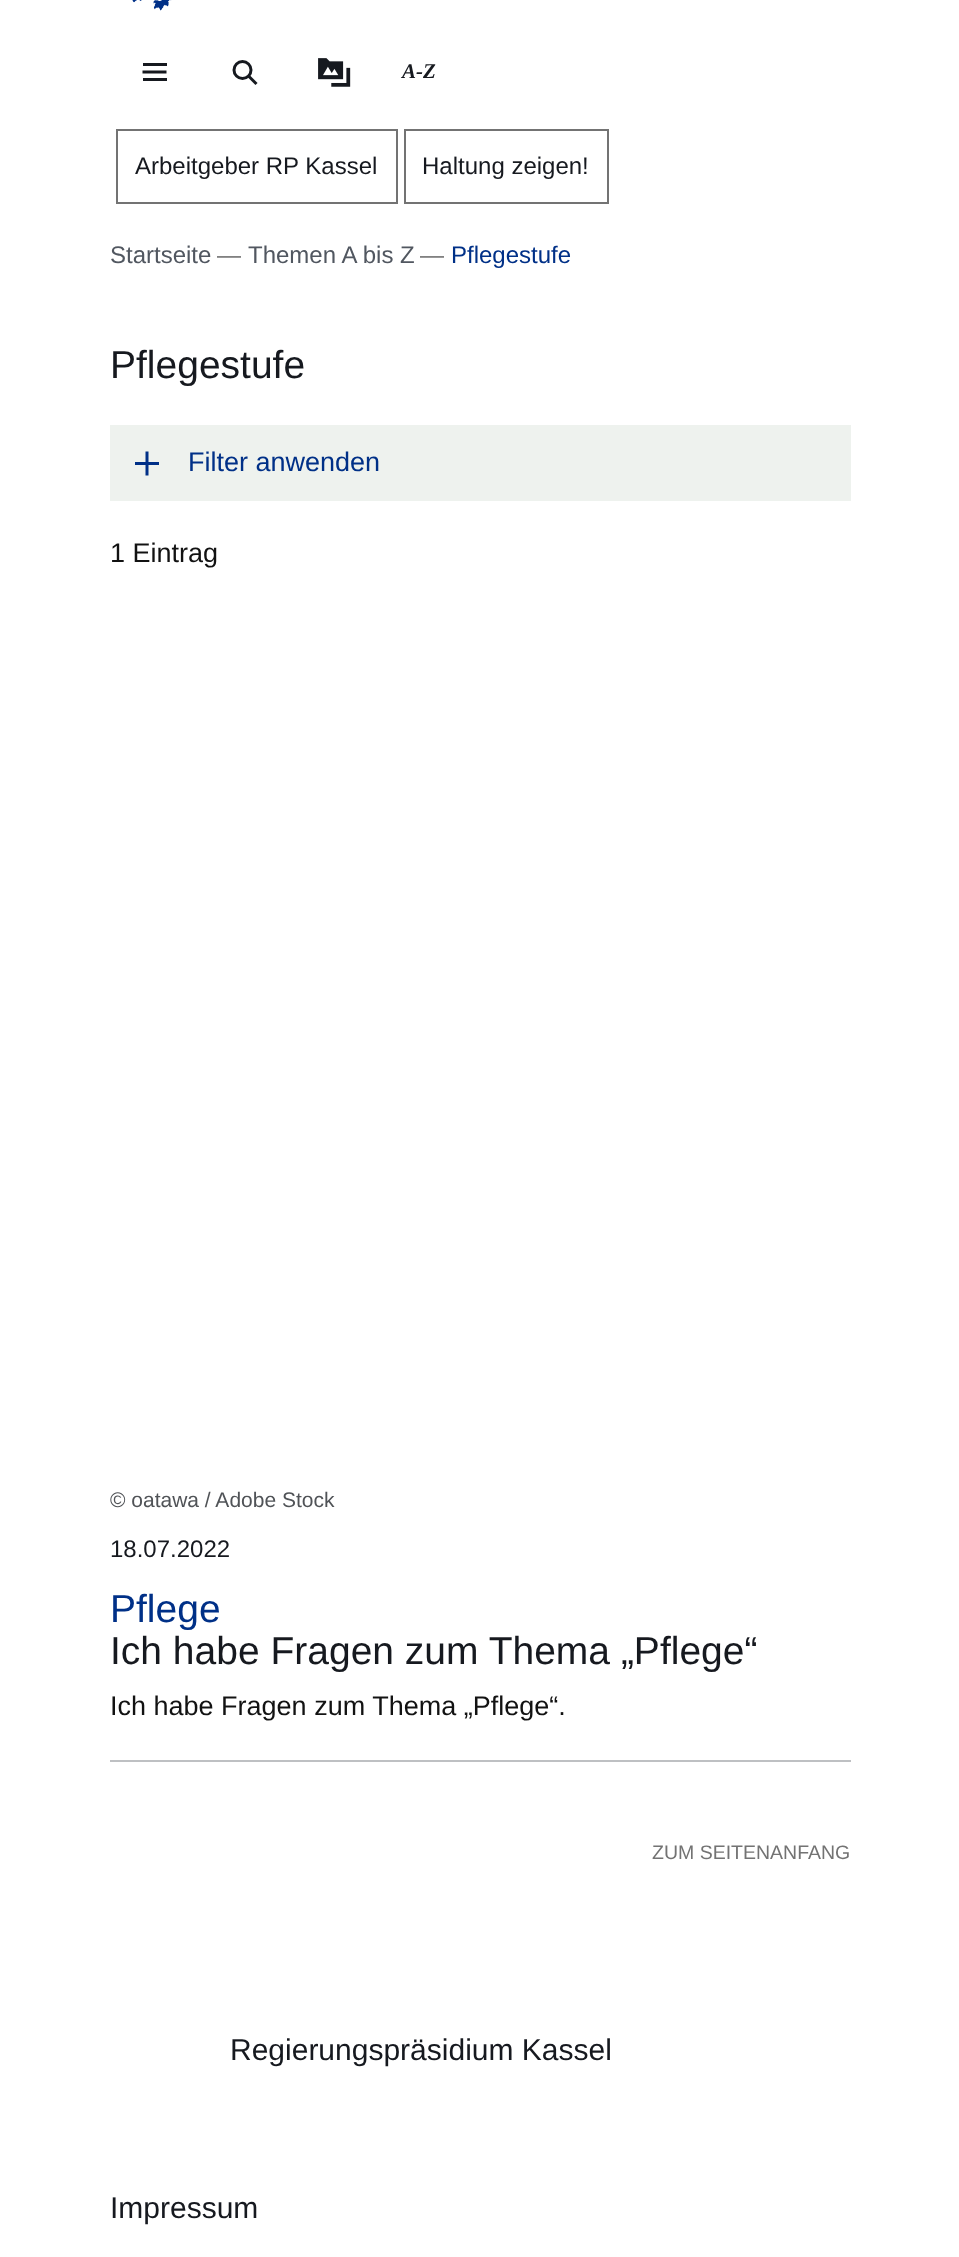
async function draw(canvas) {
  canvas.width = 959;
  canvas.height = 2257;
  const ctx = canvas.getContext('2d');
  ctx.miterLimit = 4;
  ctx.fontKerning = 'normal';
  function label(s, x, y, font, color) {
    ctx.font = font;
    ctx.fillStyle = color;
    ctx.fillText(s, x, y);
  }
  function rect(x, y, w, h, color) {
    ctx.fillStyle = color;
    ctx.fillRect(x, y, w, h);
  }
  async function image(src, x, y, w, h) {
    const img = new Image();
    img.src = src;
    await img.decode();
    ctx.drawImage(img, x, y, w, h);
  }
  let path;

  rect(0, 0, 959, 2257, '#fff');
  await image('assets/img1.png', 132, 0, 40, 11);
  rect(143, 63, 24, 3, '#16191f');
  path = new Path2D('M142.5 72H166.5');
  ctx.strokeStyle = '#16191f';
  ctx.lineWidth = 3;
  ctx.stroke(path);
  rect(143, 78, 24, 3, '#16191f');
  path = new Path2D('M248.5 76L256.5 84');
  ctx.stroke(path);
  ctx.beginPath();
  ctx.arc(242.5, 70, 8.5, 0, 2 * Math.PI);
  ctx.stroke();
  await image('assets/img2.png', 318, 58, 33, 29);
  label('A-Z', 402, 78, 'italic bold 21px Liberation Serif', '#16191f');
  ctx.strokeStyle = '#737373';
  ctx.lineWidth = 2;
  ctx.strokeRect(117, 130, 280, 73);
  label('Arbeitgeber RP Kassel', 135, 174, '24px Liberation Sans', '#16191f');
  ctx.strokeRect(405, 130, 203, 73);
  label('Haltung zeigen!', 422, 174, '24px Liberation Sans', '#16191f');
  label('Startseite', 110, 263, '24px Liberation Sans', '#515760');
  label('—', 217, 263, '24px Liberation Sans', '#737373');
  label('Themen A bis Z', 248, 263, '24px Liberation Sans', '#515760');
  label('—', 420, 263, '24px Liberation Sans', '#737373');
  label('Pflegestufe', 451, 263, '24px Liberation Sans', '#003087');
  label('Pflegestufe', 110, 378, '39px Liberation Sans', '#16191f');
  rect(110, 425, 741, 76, '#eef2ee');
  rect(135, 462, 24, 3, '#003087');
  path = new Path2D('M147 451.5V475.5');
  ctx.strokeStyle = '#003087';
  ctx.lineWidth = 3;
  ctx.stroke(path);
  label('Filter anwenden', 188, 471, '27px Liberation Sans', '#003087');
  label('1 Eintrag', 110, 562, '27px Liberation Sans', '#121212');
  rect(110, 1760, 741, 2, '#bec0c3');
  label('© oatawa / Adobe Stock', 110, 1507, '21px Liberation Sans', '#505357');
  label('18.07.2022', 110, 1557, '24px Liberation Sans', '#16191f');
  label('Pflege', 110, 1622, '39px Liberation Sans', '#003087');
  label('Ich habe Fragen zum Thema „Pflege“', 110, 1664, '39px Liberation Sans', '#16191f');
  label('Ich habe Fragen zum Thema „Pflege“.', 110, 1715, '27px Liberation Sans', '#121212');
  label('ZUM SEITENANFANG', 652, 1859, '19.5px Liberation Sans', '#737373');
  label('Regierungspräsidium Kassel', 230, 2060, '30px Liberation Sans', '#16191f');
  label('Impressum', 110, 2218, '30px Liberation Sans', '#16191f');
}

draw(document.querySelector('canvas'));
